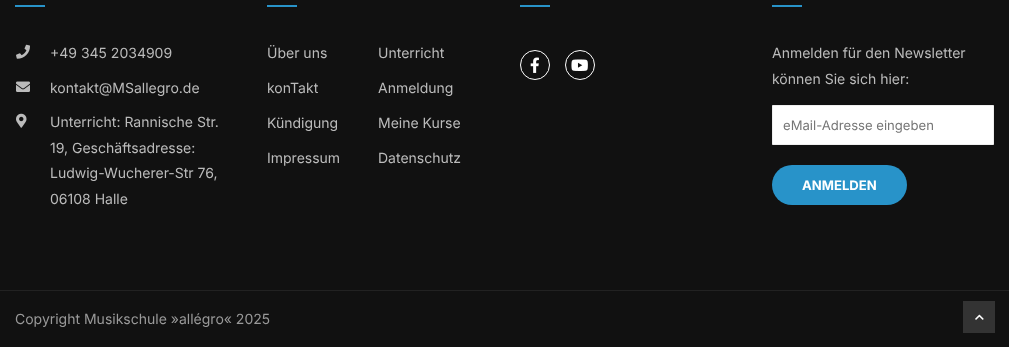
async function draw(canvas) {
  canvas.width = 1009;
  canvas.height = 347;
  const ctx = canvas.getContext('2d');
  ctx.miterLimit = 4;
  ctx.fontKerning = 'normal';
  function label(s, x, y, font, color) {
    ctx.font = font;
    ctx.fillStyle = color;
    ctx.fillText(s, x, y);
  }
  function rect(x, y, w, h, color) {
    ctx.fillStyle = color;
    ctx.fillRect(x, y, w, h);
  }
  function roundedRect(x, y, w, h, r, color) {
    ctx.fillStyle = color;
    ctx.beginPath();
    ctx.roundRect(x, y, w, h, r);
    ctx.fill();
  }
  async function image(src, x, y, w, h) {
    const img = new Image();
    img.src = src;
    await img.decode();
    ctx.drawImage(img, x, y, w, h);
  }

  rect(0, 0, 1009, 347, '#111');
  rect(15, 5, 30, 2, '#2893c9');
  await image('assets/img1.png', 16, 44, 14, 15);
  label('+49 345 2034909', 50, 58, '14px Inter', '#bbb');
  await image('assets/img2.png', 16, 81, 14, 11);
  label('kontakt@MSallegro.de', 50, 93, '14px Inter', '#bbb');
  await image('assets/img3.png', 16, 113, 11, 15);
  label('Unterricht: Rannische Str.', 50, 127, '14px Inter', '#bbb');
  label('19, Geschäftsadresse:', 50, 153, '14px Inter', '#bbb');
  label('Ludwig-Wucherer-Str 76,', 50, 178, '14px Inter', '#bbb');
  label('06108 Halle', 50, 204, '14px Inter', '#bbb');
  rect(267, 5, 30, 2, '#2893c9');
  label('Über uns', 267, 58, '14px Inter', '#bbb');
  label('Unterricht', 378, 58, '14px Inter', '#bbb');
  label('konTakt', 267, 93, '14px Inter', '#bbb');
  label('Anmeldung', 378, 93, '14px Inter', '#bbb');
  label('Kündigung', 267, 128, '14px Inter', '#bbb');
  label('Meine Kurse', 378, 128, '14px Inter', '#bbb');
  label('Impressum', 267, 163, '14px Inter', '#bbb');
  label('Datenschutz', 378, 163, '14px Inter', '#bbb');
  rect(520, 5, 30, 2, '#2893c9');
  ctx.beginPath();
  ctx.arc(535, 65, 14.5, 0, 2 * Math.PI);
  ctx.strokeStyle = '#fff';
  ctx.stroke();
  await image('assets/img4.png', 530, 57, 9, 16);
  ctx.beginPath();
  ctx.arc(580, 65, 14.5, 0, 2 * Math.PI);
  ctx.stroke();
  await image('assets/img5.png', 571, 59, 17, 12);
  rect(772, 5, 30, 2, '#2893c9');
  label('Anmelden für den Newsletter', 772, 58, '14px Inter', '#bbb');
  label('können Sie sich hier:', 772, 84, '14px Inter', '#bbb');
  ctx.fillStyle = '#fff';
  ctx.beginPath();
  ctx.rect(772.5, 105.5, 221, 39);
  ctx.fill();
  ctx.strokeStyle = '#eee';
  ctx.stroke();
  label('eMail-Adresse eingeben', 783, 130, '13.1px Inter', '#757575');
  roundedRect(772, 165, 135, 40, 20, '#2893c9');
  label('ANMELDEN', 802, 190, 'bold 13.1px Inter', '#fff');
  rect(0, 290, 1009, 1, '#222');
  label('Copyright Musikschule »allégro« 2025', 15, 324, '14px Inter', '#999');
  rect(963, 301, 32, 32, '#333');
  await image('assets/img6.png', 975, 314, 9, 6);
}

draw(document.querySelector('canvas'));
